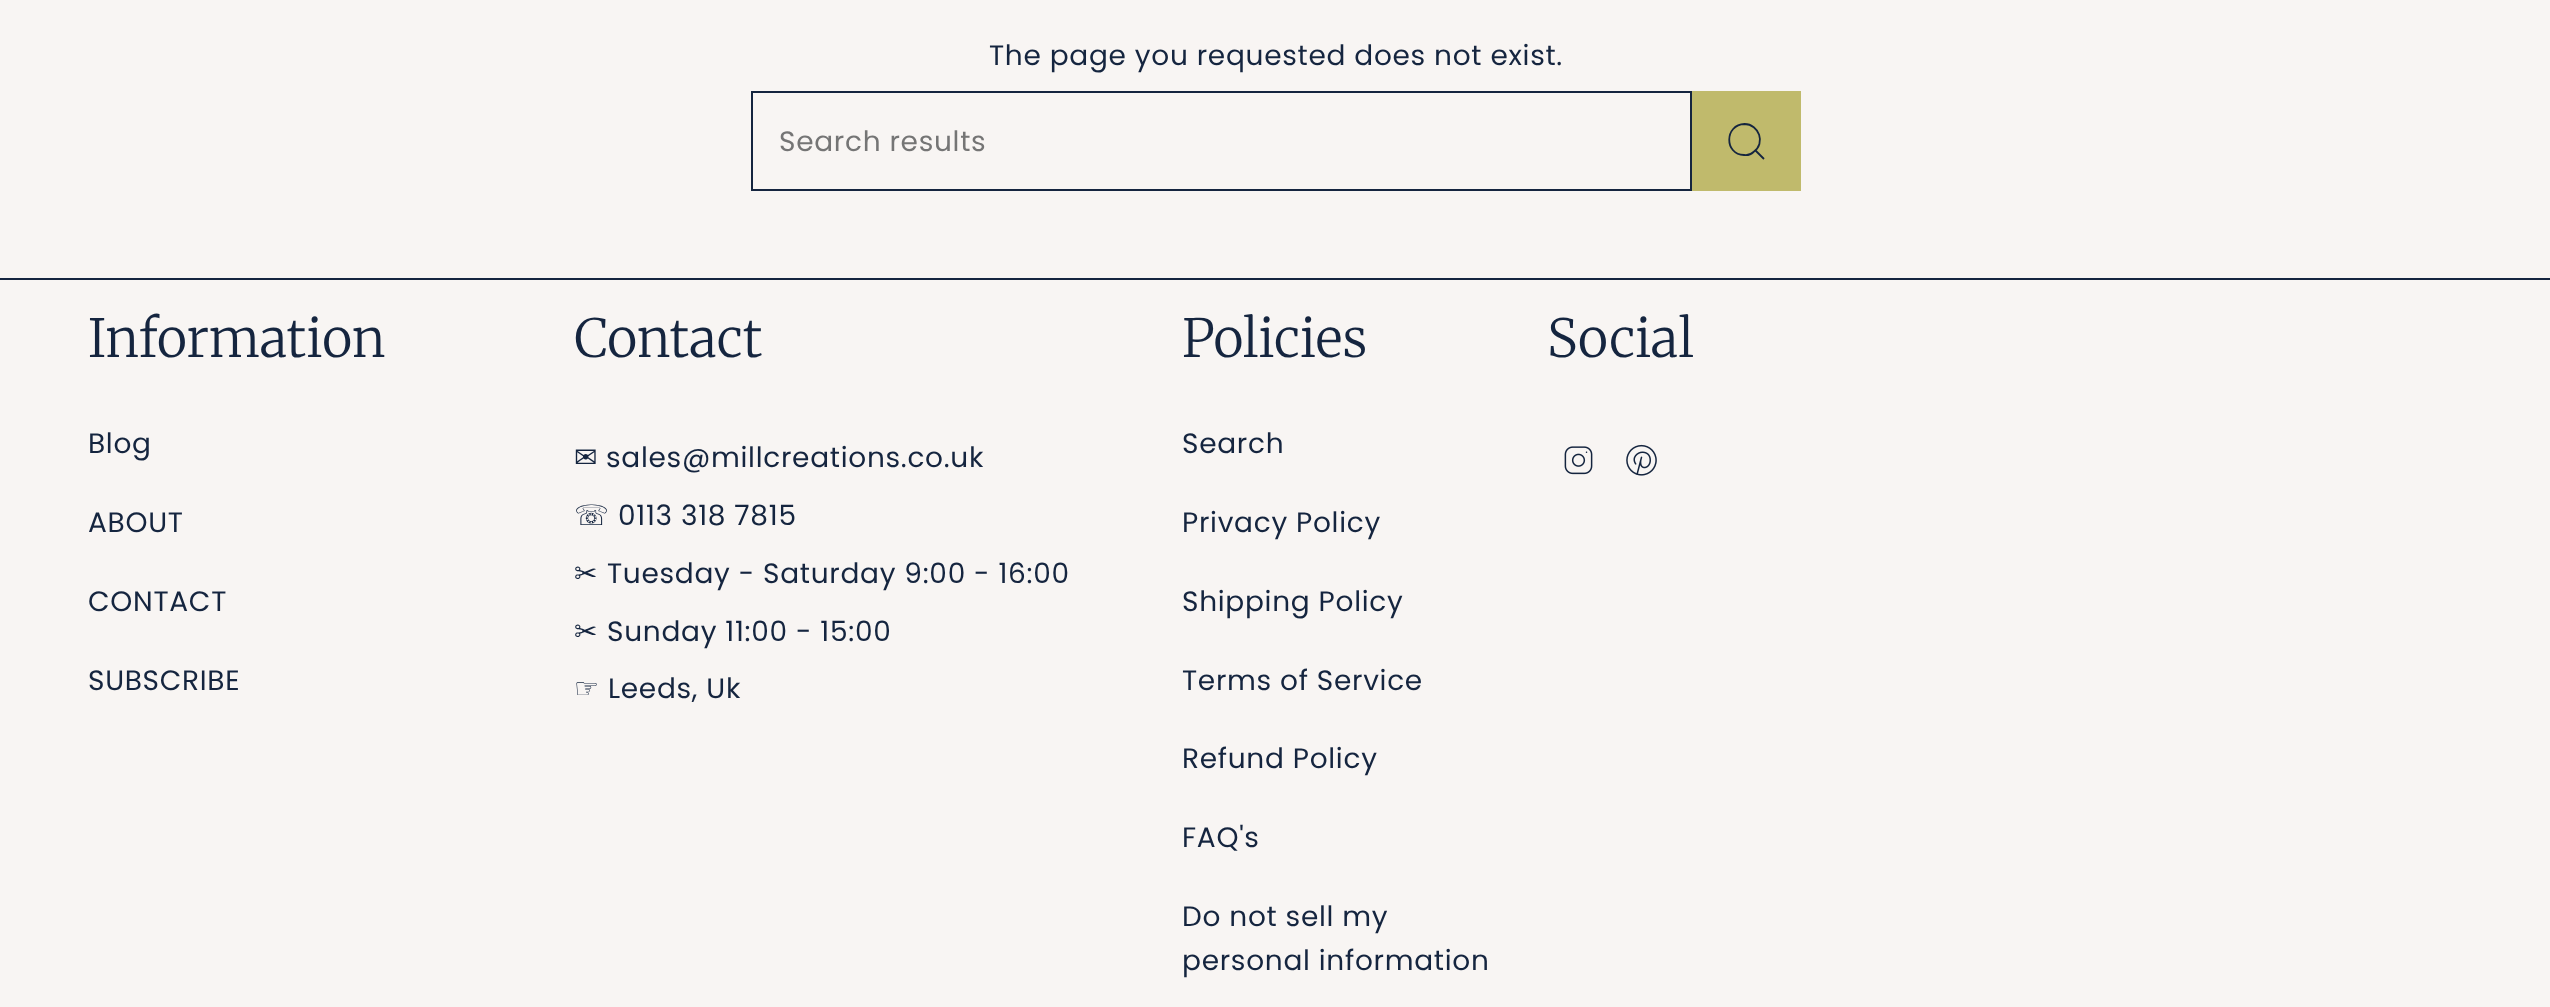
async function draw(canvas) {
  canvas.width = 2550;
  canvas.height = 1007;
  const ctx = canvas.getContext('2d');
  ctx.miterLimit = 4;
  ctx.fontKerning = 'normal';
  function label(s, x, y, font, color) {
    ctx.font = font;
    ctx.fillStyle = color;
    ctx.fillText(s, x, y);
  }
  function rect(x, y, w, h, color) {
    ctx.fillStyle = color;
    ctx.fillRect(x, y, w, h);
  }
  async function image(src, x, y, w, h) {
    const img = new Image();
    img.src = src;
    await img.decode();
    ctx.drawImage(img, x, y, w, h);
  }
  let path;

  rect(0, 0, 2550, 1007, '#f8f5f3');
  ctx.letterSpacing = '0.7px';
  label('The page you requested does not exist.', 989, 65, '28px Poppins', '#15253f');
  ctx.strokeStyle = '#15253f';
  ctx.lineWidth = 2;
  ctx.strokeRect(752, 92, 939, 98);
  label('Search results', 779, 151, '28px Poppins', '#757575');
  rect(1692, 91, 109, 100, '#c0ba6c');
  path = new Path2D('M1744.5 124C1759 124 1766 143.5 1753.5 152C1751 154.5 1747.5 155.5 1744 155C1724 154.5 1724.5 124.5 1744.5 124ZM1755.5 150.5L1764 159');
  ctx.lineWidth = 1.8;
  ctx.stroke(path);
  rect(0, 278, 2550, 2, '#15253f');
  ctx.letterSpacing = '0px';
  label('Information', 88, 357, '300 52.5px Merriweather', '#15253f');
  ctx.letterSpacing = '0.7px';
  label('Blog', 88, 453, '28px Poppins', '#15253f');
  label('ABOUT', 88, 532, '28px Poppins', '#15253f');
  label('CONTACT', 88, 611, '28px Poppins', '#15253f');
  label('SUBSCRIBE', 88, 690, '28px Poppins', '#15253f');
  ctx.letterSpacing = '0px';
  label('Contact', 574, 357, '300 52.5px Merriweather', '#15253f');
  ctx.letterSpacing = '0.7px';
  label('✉︎', 574, 467, '28px DejaVu Sans', '#15253f');
  label('sales@millcreations.co.uk', 606, 467, '28px Poppins', '#15253f');
  label('☏', 574, 525, '28px DejaVu Sans', '#15253f');
  label('0113 318 7815', 618, 525, '28px Poppins', '#15253f');
  label('✂︎', 574, 583, '28px DejaVu Sans', '#15253f');
  label('Tuesday - Saturday 9:00 - 16:00', 607, 583, '28px Poppins', '#15253f');
  label('✂︎', 574, 641, '28px DejaVu Sans', '#15253f');
  label('Sunday 11:00 - 15:00', 607, 641, '28px Poppins', '#15253f');
  label('☞', 574, 698, '28px DejaVu Sans', '#15253f');
  label('Leeds, Uk', 608, 698, '28px Poppins', '#15253f');
  ctx.letterSpacing = '0px';
  label('Policies', 1182, 357, '300 52.5px Merriweather', '#15253f');
  ctx.letterSpacing = '0.7px';
  label('Search', 1182, 453, '28px Poppins', '#15253f');
  label('Privacy Policy', 1182, 532, '28px Poppins', '#15253f');
  label('Shipping Policy', 1182, 611, '28px Poppins', '#15253f');
  label('Terms of Service', 1182, 690, '28px Poppins', '#15253f');
  label('Refund Policy', 1182, 768, '28px Poppins', '#15253f');
  label('FAQ\'s', 1182, 847, '28px Poppins', '#15253f');
  label('Do not sell my', 1182, 926, '28px Poppins', '#15253f');
  label('personal information', 1182, 970, '28px Poppins', '#15253f');
  ctx.letterSpacing = '0px';
  label('Social', 1547, 357, '300 52.5px Merriweather', '#15253f');
  await image('assets/img1.png', 1564, 446, 29, 29);
  await image('assets/img2.png', 1626, 444, 31, 32);
}

draw(document.querySelector('canvas'));
